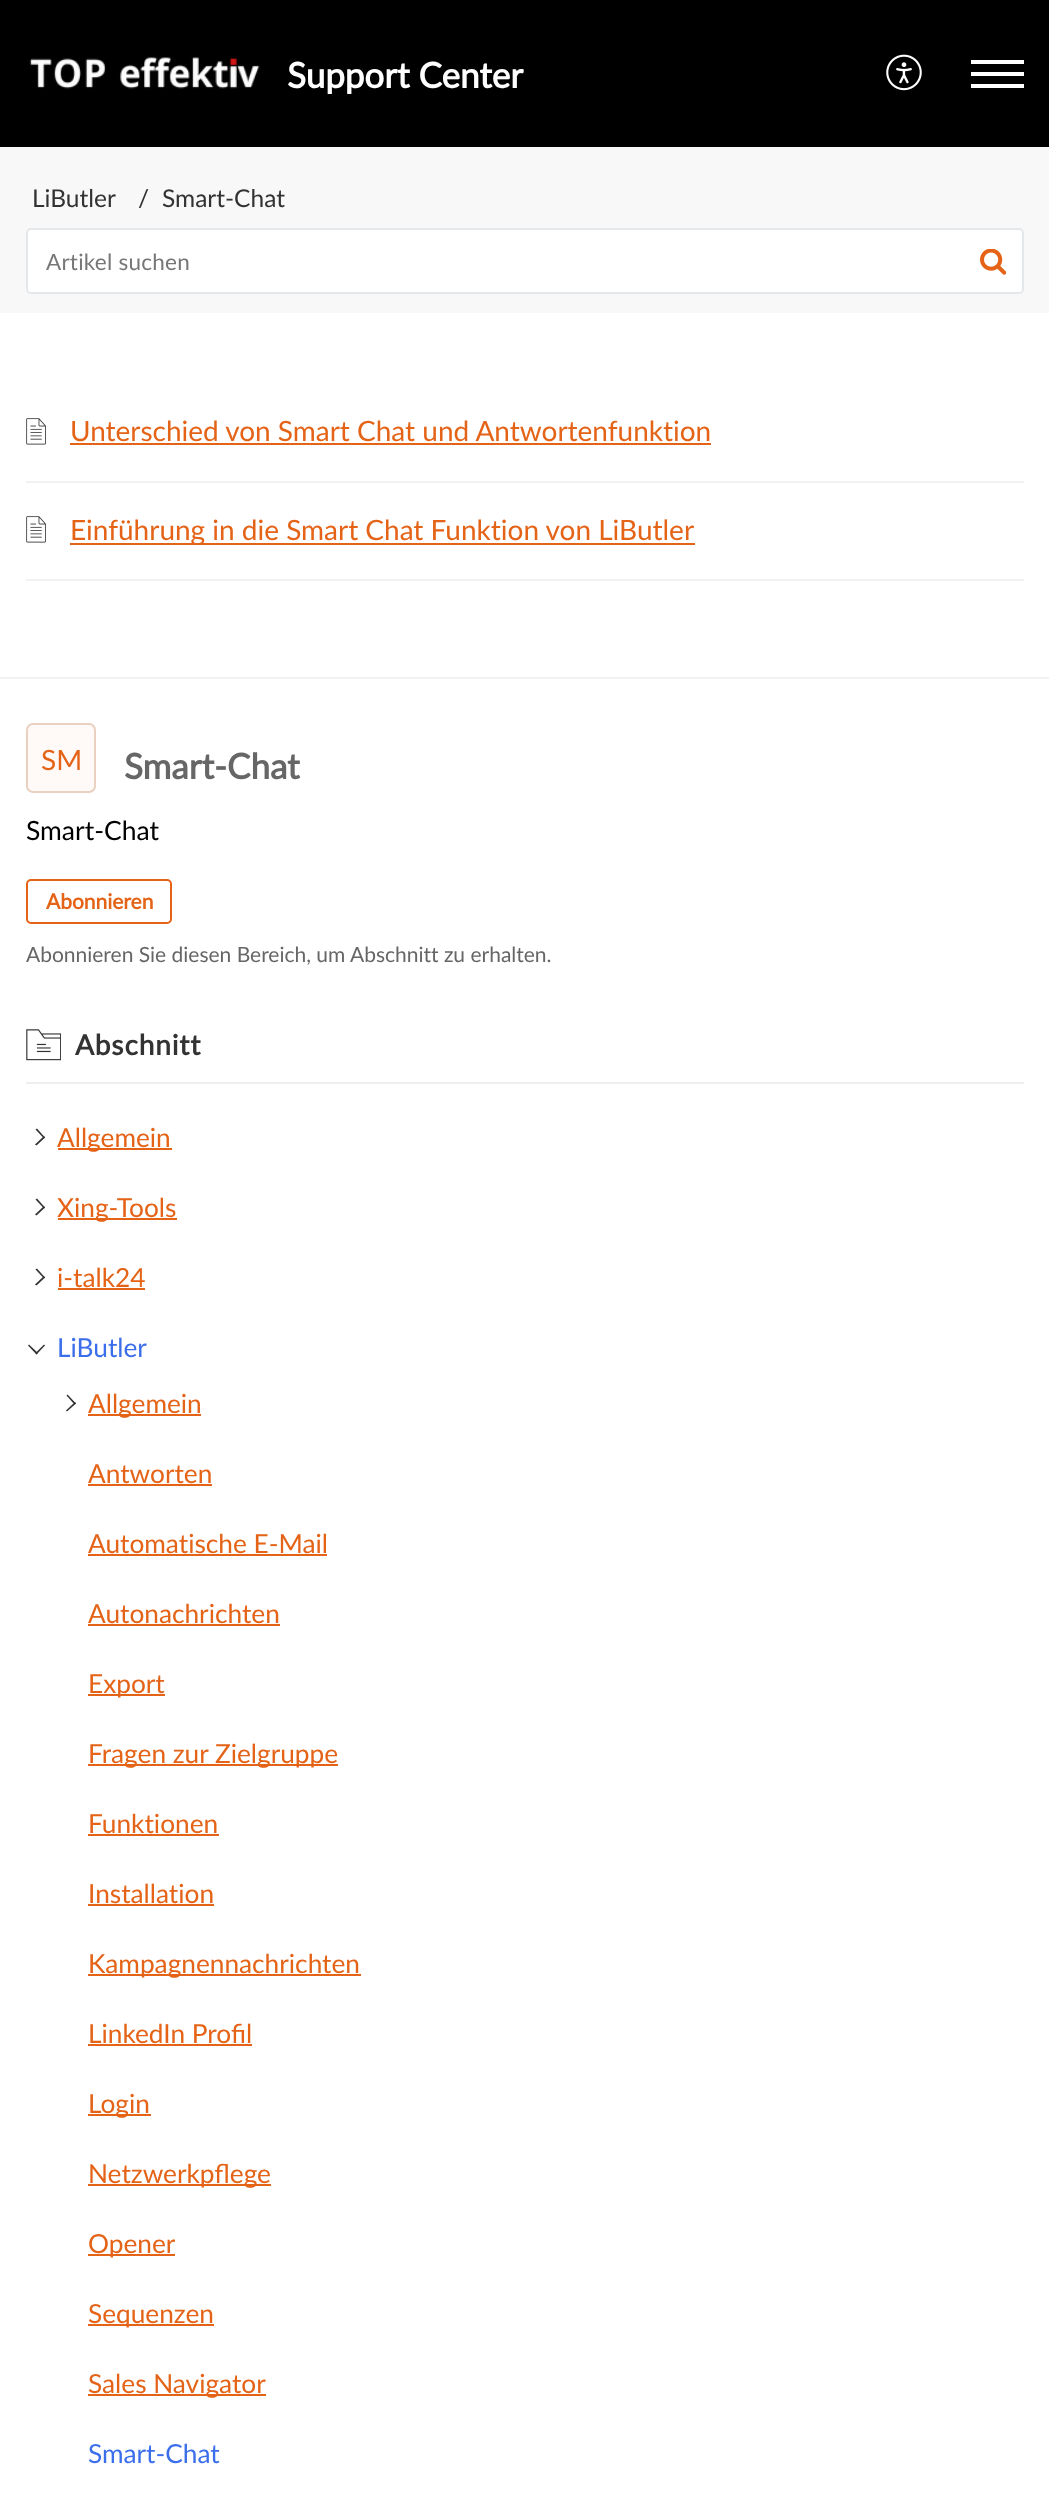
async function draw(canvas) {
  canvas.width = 1049;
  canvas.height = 2493;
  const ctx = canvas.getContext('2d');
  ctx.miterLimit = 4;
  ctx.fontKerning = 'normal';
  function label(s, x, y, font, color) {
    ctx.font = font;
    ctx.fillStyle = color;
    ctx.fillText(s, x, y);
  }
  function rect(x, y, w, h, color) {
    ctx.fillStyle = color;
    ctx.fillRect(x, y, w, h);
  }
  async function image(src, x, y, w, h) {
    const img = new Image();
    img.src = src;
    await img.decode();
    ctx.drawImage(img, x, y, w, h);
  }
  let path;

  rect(0, 0, 1049, 2493, '#fff');
  rect(0, 0, 1049, 147, '#000');
  await image('assets/img1.png', 29, 57, 231, 32);
  label('Support Center', 287, 88, 'bold 35px Lato', '#fff');
  await image('assets/img2.png', 886, 54, 36, 37);
  rect(971, 72, 53, 4, '#fff');
  rect(971, 60, 53, 4, '#fff');
  rect(971, 84, 53, 4, '#fff');
  rect(0, 147, 1049, 166, '#f8f8f8');
  label('LiButler', 32, 207, '24.5px Lato', '#333');
  label('/', 138, 207, '24.5px Lato', '#333');
  label('Smart-Chat', 162, 207, '24.5px Lato', '#333');
  ctx.fillStyle = '#fff';
  ctx.beginPath();
  ctx.roundRect(27, 229, 996, 64, 4);
  ctx.fill();
  ctx.strokeStyle = '#e5e8ea';
  ctx.lineWidth = 2;
  ctx.stroke();
  ctx.letterSpacing = '0.25px';
  label('Artikel suchen', 46, 270, '22.5px Lato', '#777');
  await image('assets/img3.png', 980, 249, 26, 26);
  rect(0, 677, 1049, 2, '#f2f2f2');
  rect(26, 481, 998, 2, '#f2f2f2');
  await image('assets/img4.png', 26, 418, 20, 27);
  ctx.letterSpacing = '0px';
  label('Unterschied von Smart Chat und Antwortenfunktion', 70, 441, '28px Lato', '#e46317');
  rect(70, 443, 641, 2, '#e46317');
  rect(26, 579, 998, 2, '#f2f2f2');
  await image('assets/img4.png', 26, 516, 20, 27);
  rect(70, 543, 625, 2, '#e46317');
  label('Einführung in die Smart Chat Funktion von LiButler', 70, 540, '28px Lato', '#e46317');
  ctx.fillStyle = '#fffaf8';
  ctx.beginPath();
  ctx.roundRect(27, 724, 68, 68, 6);
  ctx.fill();
  ctx.strokeStyle = '#ead0c0';
  ctx.stroke();
  label('SM', 41, 770, '28px Lato', '#e46317');
  label('Smart-Chat', 124, 779, 'bold 35px Lato', '#666');
  label('Smart-Chat', 26, 840, '26.5px Lato', '#000');
  ctx.beginPath();
  ctx.roundRect(27, 880, 144, 43, 4);
  ctx.strokeStyle = '#e46317';
  ctx.stroke();
  label('Abonnieren', 46, 909, 'bold 21px Lato', '#e46317');
  label('Abonnieren Sie diesen Bereich, um Abschnitt zu erhalten.', 26, 962, '21px Lato', '#666');
  rect(26, 1082, 998, 2, '#efefef');
  await image('assets/img5.png', 26, 1029, 35, 32);
  ctx.letterSpacing = '0.9px';
  label('Abschnitt', 75, 1055, 'bold 28px Lato', '#333');
  path = new Path2D('M44 1138.5L35.5 1129.5L37 1128.5L45 1137.5Z');
  ctx.fill(path);
  path = new Path2D('M36.5 1145.5L35 1144.5L44 1136L45 1137.5Z');
  ctx.fill(path);
  rect(58, 1148, 114, 2, '#e46317');
  ctx.letterSpacing = '0px';
  label('Allgemein', 57, 1147, '26.25px Lato', '#e46317');
  ctx.fillStyle = '#333';
  path = new Path2D('M44 1208.5L35.5 1199.5L37 1198.5L45 1207.5Z');
  ctx.fill(path);
  path = new Path2D('M36.5 1215.5L35 1214.5L44 1206L45 1207.5Z');
  ctx.fill(path);
  rect(58, 1218, 119, 2, '#e46317');
  label('Xing-Tools', 57, 1217, '26.25px Lato', '#e46317');
  ctx.fillStyle = '#333';
  path = new Path2D('M44 1278.5L35.5 1269.5L37 1268.5L45 1277.5Z');
  ctx.fill(path);
  path = new Path2D('M36.5 1285.5L35 1284.5L44 1276L45 1277.5Z');
  ctx.fill(path);
  label('i-talk24', 57, 1287, '26.25px Lato', '#e46317');
  rect(58, 1288, 87, 2, '#e46317');
  ctx.fillStyle = '#333';
  path = new Path2D('M35.5 1353L44 1344.5L45 1345.5L36.5 1354.5Z');
  ctx.fill(path);
  path = new Path2D('M28 1345.5L29 1344.5L38 1353L36.5 1354.5Z');
  ctx.fill(path);
  label('LiButler', 57, 1357, '26.25px Lato', '#3a6eeb');
  ctx.fillStyle = '#333';
  path = new Path2D('M74.5 1404.5L66.5 1395.5L67.5 1394.5L76 1403.5Z');
  ctx.fill(path);
  path = new Path2D('M67 1411.5L66 1410.5L75 1402L76 1403.5Z');
  ctx.fill(path);
  rect(88, 1414, 113, 2, '#e46317');
  label('Allgemein', 88, 1413, '26.25px Lato', '#e46317');
  label('Antworten', 88, 1483, '26.25px Lato', '#e46317');
  rect(88, 1484, 124, 2, '#e46317');
  label('Automatische E-Mail', 88, 1553, '26.25px Lato', '#e46317');
  rect(88, 1554, 239, 2, '#e46317');
  label('Autonachrichten', 88, 1623, '26.25px Lato', '#e46317');
  rect(88, 1624, 192, 2, '#e46317');
  rect(88, 1694, 77, 2, '#e46317');
  label('Export', 88, 1693, '26.25px Lato', '#e46317');
  rect(88, 1764, 250, 2, '#e46317');
  label('Fragen zur Zielgruppe', 88, 1763, '26.25px Lato', '#e46317');
  label('Funktionen', 88, 1833, '26.25px Lato', '#e46317');
  rect(88, 1834, 131, 2, '#e46317');
  label('Installation', 88, 1903, '26.25px Lato', '#e46317');
  rect(88, 1904, 126, 2, '#e46317');
  rect(88, 1974, 273, 2, '#e46317');
  label('Kampagnennachrichten', 88, 1973, '26.25px Lato', '#e46317');
  label('LinkedIn Profil', 88, 2043, '26.25px Lato', '#e46317');
  rect(88, 2044, 164, 2, '#e46317');
  rect(88, 2114, 63, 2, '#e46317');
  label('Login', 88, 2113, '26.25px Lato', '#e46317');
  rect(88, 2184, 183, 2, '#e46317');
  label('Netzwerkpflege', 88, 2183, '26.25px Lato', '#e46317');
  rect(88, 2254, 87, 2, '#e46317');
  label('Opener', 88, 2253, '26.25px Lato', '#e46317');
  rect(88, 2324, 126, 2, '#e46317');
  label('Sequenzen', 88, 2323, '26.25px Lato', '#e46317');
  rect(88, 2394, 178, 2, '#e46317');
  label('Sales Navigator', 88, 2393, '26.25px Lato', '#e46317');
  label('Smart-Chat', 88, 2463, '26.25px Lato', '#3a6eeb');
}

draw(document.querySelector('canvas'));
